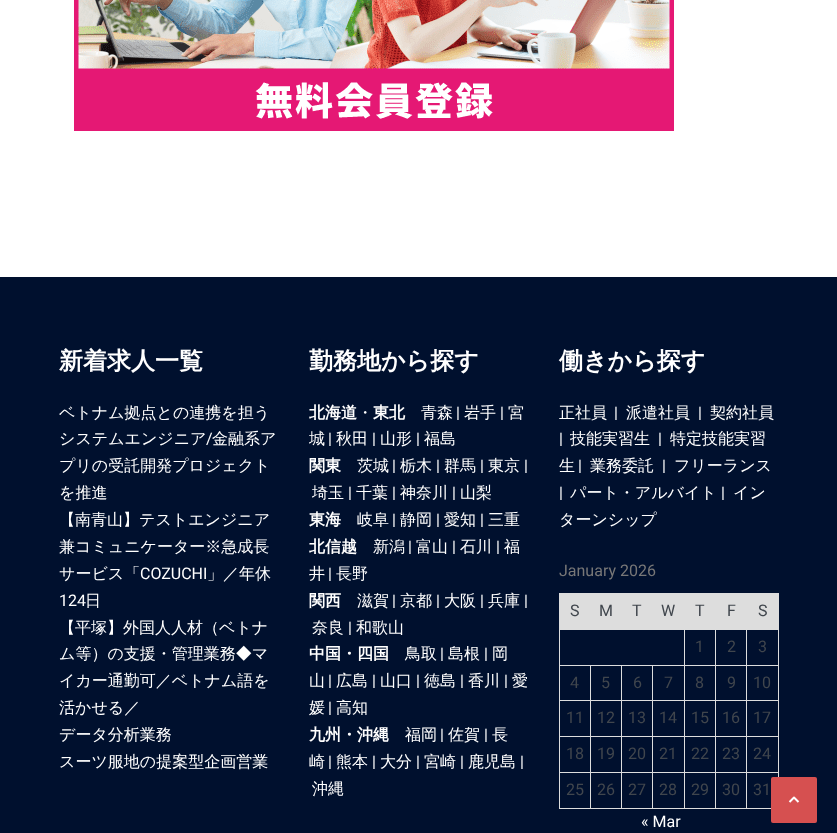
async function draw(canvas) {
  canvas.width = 837;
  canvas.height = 833;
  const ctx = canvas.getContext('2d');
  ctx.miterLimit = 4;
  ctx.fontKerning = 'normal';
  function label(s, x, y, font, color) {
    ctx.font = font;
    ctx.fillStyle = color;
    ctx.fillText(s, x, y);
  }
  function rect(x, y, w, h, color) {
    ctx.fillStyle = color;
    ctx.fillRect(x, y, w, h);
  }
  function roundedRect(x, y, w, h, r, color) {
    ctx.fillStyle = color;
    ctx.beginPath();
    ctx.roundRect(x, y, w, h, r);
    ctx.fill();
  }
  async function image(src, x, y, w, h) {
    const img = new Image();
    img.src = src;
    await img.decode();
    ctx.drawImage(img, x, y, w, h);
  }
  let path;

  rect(0, 0, 837, 833, '#fff');
  await image('assets/img1.png', 74, 0, 600, 131);
  rect(0, 277, 837, 556, '#00102e');
  label('新着求人一覧', 59, 369, 'bold 24px WenQuanYi Zen Hei', '#fff');
  label('ベトナム拠点との連携を担う', 59, 418, '500 16px WenQuanYi Zen Hei', '#fff');
  label('システムエンジニア', 59, 444, '500 16px WenQuanYi Zen Hei', '#fff');
  label('/', 206, 444, '16px Roboto', '#fff');
  label('金融系ア', 212, 444, '500 16px WenQuanYi Zen Hei', '#fff');
  label('プリの受託開発プロジェクト', 59, 471, '500 16px WenQuanYi Zen Hei', '#fff');
  label('を推進', 59, 498, '500 16px WenQuanYi Zen Hei', '#fff');
  label('【南青山】テストエンジニア', 59, 525, '500 16px WenQuanYi Zen Hei', '#fff');
  label('兼コミュニケーター※急成長', 59, 552, '500 16px WenQuanYi Zen Hei', '#fff');
  label('サービス「', 59, 579, '500 16px WenQuanYi Zen Hei', '#fff');
  label('COZUCHI', 140, 579, '16px Roboto', '#fff');
  label('」／年休', 207, 579, '500 16px WenQuanYi Zen Hei', '#fff');
  label('124', 59, 606, '16px Roboto', '#fff');
  label('日', 85, 606, '500 16px WenQuanYi Zen Hei', '#fff');
  label('【平塚】外国人人材（ベトナ', 59, 633, '500 16px WenQuanYi Zen Hei', '#fff');
  label('ム等）の支援・管理業務◆マ', 59, 659, '500 16px WenQuanYi Zen Hei', '#fff');
  label('イカー通勤可／ベトナム語を', 59, 686, '500 16px WenQuanYi Zen Hei', '#fff');
  label('活かせる／', 59, 713, '500 16px WenQuanYi Zen Hei', '#fff');
  label('データ分析業務', 59, 740, '500 16px WenQuanYi Zen Hei', '#fff');
  label('スーツ服地の提案型企画営業', 59, 767, '500 16px WenQuanYi Zen Hei', '#fff');
  label('勤務地から探す', 309, 369, 'bold 24px WenQuanYi Zen Hei', '#fff');
  label('北海道', 309, 418, 'bold 16px WenQuanYi Zen Hei', '#fff');
  label('・', 357, 418, '500 16px WenQuanYi Zen Hei', '#fff');
  label('東北', 373, 418, 'bold 16px WenQuanYi Zen Hei', '#fff');
  label('青森', 421, 418, '500 16px WenQuanYi Zen Hei', '#fff');
  label('|', 456, 418, '16px Roboto', '#fff');
  label('岩手', 464, 418, '500 16px WenQuanYi Zen Hei', '#fff');
  label('|', 500, 418, '16px Roboto', '#fff');
  label('宮', 508, 418, '500 16px WenQuanYi Zen Hei', '#fff');
  label('城', 309, 444, '500 16px WenQuanYi Zen Hei', '#fff');
  label('|', 328, 444, '16px Roboto', '#fff');
  label('秋田', 336, 444, '500 16px WenQuanYi Zen Hei', '#fff');
  label('|', 372, 444, '16px Roboto', '#fff');
  label('山形', 380, 444, '500 16px WenQuanYi Zen Hei', '#fff');
  label('|', 416, 444, '16px Roboto', '#fff');
  label('福島', 424, 444, '500 16px WenQuanYi Zen Hei', '#fff');
  label('関東', 309, 471, 'bold 16px WenQuanYi Zen Hei', '#fff');
  label('茨城', 357, 471, '500 16px WenQuanYi Zen Hei', '#fff');
  label('|', 392, 471, '16px Roboto', '#fff');
  label('栃木', 400, 471, '500 16px WenQuanYi Zen Hei', '#fff');
  label('|', 436, 471, '16px Roboto', '#fff');
  label('群馬', 444, 471, '500 16px WenQuanYi Zen Hei', '#fff');
  label('|', 480, 471, '16px Roboto', '#fff');
  label('東京', 488, 471, '500 16px WenQuanYi Zen Hei', '#fff');
  label('|', 524, 471, '16px Roboto', '#fff');
  label('埼玉', 312, 498, '500 16px WenQuanYi Zen Hei', '#fff');
  label('|', 348, 498, '16px Roboto', '#fff');
  label('千葉', 356, 498, '500 16px WenQuanYi Zen Hei', '#fff');
  label('|', 392, 498, '16px Roboto', '#fff');
  label('神奈川', 400, 498, '500 16px WenQuanYi Zen Hei', '#fff');
  label('|', 452, 498, '16px Roboto', '#fff');
  label('山梨', 460, 498, '500 16px WenQuanYi Zen Hei', '#fff');
  label('東海', 309, 525, 'bold 16px WenQuanYi Zen Hei', '#fff');
  label('岐阜', 357, 525, '500 16px WenQuanYi Zen Hei', '#fff');
  label('|', 392, 525, '16px Roboto', '#fff');
  label('静岡', 400, 525, '500 16px WenQuanYi Zen Hei', '#fff');
  label('|', 436, 525, '16px Roboto', '#fff');
  label('愛知', 444, 525, '500 16px WenQuanYi Zen Hei', '#fff');
  label('|', 480, 525, '16px Roboto', '#fff');
  label('三重', 488, 525, '500 16px WenQuanYi Zen Hei', '#fff');
  label('北信越', 309, 552, 'bold 16px WenQuanYi Zen Hei', '#fff');
  label('新潟', 373, 552, '500 16px WenQuanYi Zen Hei', '#fff');
  label('|', 408, 552, '16px Roboto', '#fff');
  label('富山', 416, 552, '500 16px WenQuanYi Zen Hei', '#fff');
  label('|', 452, 552, '16px Roboto', '#fff');
  label('石川', 460, 552, '500 16px WenQuanYi Zen Hei', '#fff');
  label('|', 496, 552, '16px Roboto', '#fff');
  label('福', 504, 552, '500 16px WenQuanYi Zen Hei', '#fff');
  label('井', 309, 579, '500 16px WenQuanYi Zen Hei', '#fff');
  label('|', 328, 579, '16px Roboto', '#fff');
  label('長野', 336, 579, '500 16px WenQuanYi Zen Hei', '#fff');
  label('関西', 309, 606, 'bold 16px WenQuanYi Zen Hei', '#fff');
  label('滋賀', 357, 606, '500 16px WenQuanYi Zen Hei', '#fff');
  label('|', 392, 606, '16px Roboto', '#fff');
  label('京都', 400, 606, '500 16px WenQuanYi Zen Hei', '#fff');
  label('|', 436, 606, '16px Roboto', '#fff');
  label('大阪', 444, 606, '500 16px WenQuanYi Zen Hei', '#fff');
  label('|', 480, 606, '16px Roboto', '#fff');
  label('兵庫', 488, 606, '500 16px WenQuanYi Zen Hei', '#fff');
  label('|', 524, 606, '16px Roboto', '#fff');
  label('奈良', 312, 633, '500 16px WenQuanYi Zen Hei', '#fff');
  label('|', 348, 633, '16px Roboto', '#fff');
  label('和歌山', 356, 633, '500 16px WenQuanYi Zen Hei', '#fff');
  label('中国・四国', 309, 659, 'bold 16px WenQuanYi Zen Hei', '#fff');
  label('鳥取', 405, 659, '500 16px WenQuanYi Zen Hei', '#fff');
  label('|', 440, 659, '16px Roboto', '#fff');
  label('島根', 448, 659, '500 16px WenQuanYi Zen Hei', '#fff');
  label('|', 484, 659, '16px Roboto', '#fff');
  label('岡', 492, 659, '500 16px WenQuanYi Zen Hei', '#fff');
  label('山', 309, 686, '500 16px WenQuanYi Zen Hei', '#fff');
  label('|', 328, 686, '16px Roboto', '#fff');
  label('広島', 336, 686, '500 16px WenQuanYi Zen Hei', '#fff');
  label('|', 372, 686, '16px Roboto', '#fff');
  label('山口', 380, 686, '500 16px WenQuanYi Zen Hei', '#fff');
  label('|', 416, 686, '16px Roboto', '#fff');
  label('徳島', 424, 686, '500 16px WenQuanYi Zen Hei', '#fff');
  label('|', 460, 686, '16px Roboto', '#fff');
  label('香川', 468, 686, '500 16px WenQuanYi Zen Hei', '#fff');
  label('|', 504, 686, '16px Roboto', '#fff');
  label('愛', 512, 686, '500 16px WenQuanYi Zen Hei', '#fff');
  label('媛', 309, 713, '500 16px WenQuanYi Zen Hei', '#fff');
  label('|', 328, 713, '16px Roboto', '#fff');
  label('高知', 336, 713, '500 16px WenQuanYi Zen Hei', '#fff');
  label('九州・沖縄', 309, 740, 'bold 16px WenQuanYi Zen Hei', '#fff');
  label('福岡', 405, 740, '500 16px WenQuanYi Zen Hei', '#fff');
  label('|', 440, 740, '16px Roboto', '#fff');
  label('佐賀', 448, 740, '500 16px WenQuanYi Zen Hei', '#fff');
  label('|', 484, 740, '16px Roboto', '#fff');
  label('長', 492, 740, '500 16px WenQuanYi Zen Hei', '#fff');
  label('崎', 309, 767, '500 16px WenQuanYi Zen Hei', '#fff');
  label('|', 328, 767, '16px Roboto', '#fff');
  label('熊本', 336, 767, '500 16px WenQuanYi Zen Hei', '#fff');
  label('|', 372, 767, '16px Roboto', '#fff');
  label('大分', 380, 767, '500 16px WenQuanYi Zen Hei', '#fff');
  label('|', 416, 767, '16px Roboto', '#fff');
  label('宮崎', 424, 767, '500 16px WenQuanYi Zen Hei', '#fff');
  label('|', 460, 767, '16px Roboto', '#fff');
  label('鹿児島', 468, 767, '500 16px WenQuanYi Zen Hei', '#fff');
  label('|', 520, 767, '16px Roboto', '#fff');
  label('沖縄', 312, 794, '500 16px WenQuanYi Zen Hei', '#fff');
  label('働きから探す', 559, 369, 'bold 24px WenQuanYi Zen Hei', '#fff');
  label('正社員', 559, 418, '500 16px WenQuanYi Zen Hei', '#fff');
  label('|', 614, 418, '16px Roboto', '#fff');
  label('派遣社員', 626, 418, '500 16px WenQuanYi Zen Hei', '#fff');
  label('|', 698, 418, '16px Roboto', '#fff');
  label('契約社員', 710, 418, '500 16px WenQuanYi Zen Hei', '#fff');
  label('|', 559, 444, '16px Roboto', '#fff');
  label('技能実習生', 570, 444, '500 16px WenQuanYi Zen Hei', '#fff');
  label('|', 658, 444, '16px Roboto', '#fff');
  label('特定技能実習', 670, 444, '500 16px WenQuanYi Zen Hei', '#fff');
  label('生', 559, 471, '500 16px WenQuanYi Zen Hei', '#fff');
  label('|', 578, 471, '16px Roboto', '#fff');
  label('業務委託', 590, 471, '500 16px WenQuanYi Zen Hei', '#fff');
  label('|', 662, 471, '16px Roboto', '#fff');
  label('フリーランス', 674, 471, '500 16px WenQuanYi Zen Hei', '#fff');
  label('|', 559, 498, '16px Roboto', '#fff');
  label('パート・アルバイト', 570, 498, '500 16px WenQuanYi Zen Hei', '#fff');
  label('|', 721, 498, '16px Roboto', '#fff');
  label('イン', 733, 498, '500 16px WenQuanYi Zen Hei', '#fff');
  label('ターンシップ', 559, 525, '500 16px WenQuanYi Zen Hei', '#fff');
  label('January 2026', 559, 576, '16px Roboto', '#777');
  rect(559, 593, 188, 36, '#ddd');
  label('S', 570, 616, '16px Roboto', '#40464d');
  label('M', 599, 616, '16px Roboto', '#40464d');
  label('T', 632, 616, '16px Roboto', '#40464d');
  label('W', 661, 616, '16px Roboto', '#40464d');
  label('T', 695, 616, '16px Roboto', '#40464d');
  label('F', 727, 616, '16px Roboto', '#40464d');
  rect(747, 594, 31, 35, '#ddd');
  rect(746, 593, 33, 1, '#ddd');
  rect(746, 629, 33, 1, '#ddd');
  rect(746, 665, 33, 1, '#ddd');
  rect(746, 700, 33, 1, '#ddd');
  rect(746, 736, 33, 1, '#ddd');
  rect(746, 772, 33, 1, '#ddd');
  rect(778, 772, 1, 5, '#ddd');
  rect(778, 736, 1, 37, '#ddd');
  rect(778, 700, 1, 37, '#ddd');
  rect(778, 665, 1, 36, '#ddd');
  rect(778, 629, 1, 37, '#ddd');
  rect(778, 593, 1, 37, '#ddd');
  label('S', 758, 616, '16px Roboto', '#40464d');
  rect(746, 808, 33, 1, '#ddd');
  rect(746, 772, 1, 37, '#ddd');
  rect(715, 772, 32, 1, '#ddd');
  rect(746, 736, 1, 37, '#ddd');
  rect(715, 736, 32, 1, '#ddd');
  rect(746, 700, 1, 37, '#ddd');
  rect(715, 700, 32, 1, '#ddd');
  rect(746, 665, 1, 36, '#ddd');
  rect(715, 665, 32, 1, '#ddd');
  rect(746, 629, 1, 37, '#ddd');
  rect(715, 629, 32, 1, '#ddd');
  rect(715, 808, 32, 1, '#ddd');
  rect(715, 772, 1, 37, '#ddd');
  rect(684, 772, 32, 1, '#ddd');
  rect(715, 736, 1, 37, '#ddd');
  rect(684, 736, 32, 1, '#ddd');
  rect(715, 700, 1, 37, '#ddd');
  rect(684, 700, 32, 1, '#ddd');
  rect(715, 665, 1, 36, '#ddd');
  rect(684, 665, 32, 1, '#ddd');
  rect(715, 629, 1, 37, '#ddd');
  rect(684, 629, 32, 1, '#ddd');
  rect(684, 808, 32, 1, '#ddd');
  rect(684, 772, 1, 37, '#ddd');
  rect(652, 772, 33, 1, '#ddd');
  rect(684, 736, 1, 37, '#ddd');
  rect(652, 736, 33, 1, '#ddd');
  rect(684, 700, 1, 37, '#ddd');
  rect(652, 700, 33, 1, '#ddd');
  rect(684, 665, 1, 36, '#ddd');
  rect(652, 665, 33, 1, '#ddd');
  rect(684, 629, 1, 37, '#ddd');
  rect(559, 629, 126, 1, '#ddd');
  rect(652, 808, 33, 1, '#ddd');
  rect(652, 772, 1, 37, '#ddd');
  rect(621, 772, 32, 1, '#ddd');
  rect(652, 736, 1, 37, '#ddd');
  rect(621, 736, 32, 1, '#ddd');
  rect(652, 700, 1, 37, '#ddd');
  rect(621, 700, 32, 1, '#ddd');
  rect(652, 665, 1, 36, '#ddd');
  rect(621, 665, 32, 1, '#ddd');
  rect(621, 808, 32, 1, '#ddd');
  rect(621, 772, 1, 37, '#ddd');
  rect(590, 772, 32, 1, '#ddd');
  rect(621, 736, 1, 37, '#ddd');
  rect(590, 736, 32, 1, '#ddd');
  rect(621, 700, 1, 37, '#ddd');
  rect(590, 700, 32, 1, '#ddd');
  rect(621, 665, 1, 36, '#ddd');
  rect(590, 665, 32, 1, '#ddd');
  rect(590, 808, 32, 1, '#ddd');
  rect(590, 772, 1, 37, '#ddd');
  rect(559, 772, 32, 1, '#ddd');
  rect(590, 736, 1, 37, '#ddd');
  rect(559, 736, 32, 1, '#ddd');
  rect(590, 700, 1, 37, '#ddd');
  rect(559, 700, 32, 1, '#ddd');
  rect(590, 665, 1, 36, '#ddd');
  rect(559, 665, 32, 1, '#ddd');
  rect(559, 808, 32, 1, '#ddd');
  rect(559, 772, 1, 37, '#ddd');
  rect(559, 736, 1, 37, '#ddd');
  rect(559, 700, 1, 37, '#ddd');
  rect(559, 665, 1, 36, '#ddd');
  rect(559, 629, 1, 37, '#ddd');
  label('1', 695, 652, '16px Roboto', '#40464d');
  label('2', 727, 652, '16px Roboto', '#40464d');
  label('3', 758, 652, '16px Roboto', '#40464d');
  label('4', 570, 688, '16px Roboto', '#40464d');
  label('5', 601, 688, '16px Roboto', '#40464d');
  label('6', 633, 688, '16px Roboto', '#40464d');
  label('7', 664, 688, '16px Roboto', '#40464d');
  label('8', 695, 688, '16px Roboto', '#40464d');
  label('9', 727, 688, '16px Roboto', '#40464d');
  label('10', 753, 688, '16px Roboto', '#40464d');
  label('11', 566, 723, '16px Roboto', '#40464d');
  label('12', 597, 723, '16px Roboto', '#40464d');
  label('13', 628, 723, '16px Roboto', '#40464d');
  label('14', 659, 723, '16px Roboto', '#40464d');
  label('15', 691, 723, '16px Roboto', '#40464d');
  label('16', 722, 723, '16px Roboto', '#40464d');
  label('17', 753, 723, '16px Roboto', '#40464d');
  label('18', 566, 759, '16px Roboto', '#40464d');
  label('19', 597, 759, '16px Roboto', '#40464d');
  label('20', 628, 759, '16px Roboto', '#40464d');
  label('21', 659, 759, '16px Roboto', '#40464d');
  label('22', 691, 759, '16px Roboto', '#40464d');
  label('23', 722, 759, '16px Roboto', '#40464d');
  label('24', 753, 759, '16px Roboto', '#40464d');
  label('25', 566, 795, '16px Roboto', '#40464d');
  label('26', 597, 795, '16px Roboto', '#40464d');
  label('27', 628, 795, '16px Roboto', '#40464d');
  label('28', 659, 795, '16px Roboto', '#40464d');
  label('29', 691, 795, '16px Roboto', '#40464d');
  label('30', 722, 795, '16px Roboto', '#40464d');
  label('31', 753, 795, '16px Roboto', '#40464d');
  label('« Mar', 641, 827, '16px Roboto', '#fff');
  roundedRect(771, 777, 46, 46, 2, '#d65050');
  path = new Path2D('M789.5 802L794 797.5L798.5 802');
  ctx.strokeStyle = '#fff';
  ctx.lineWidth = 2;
  ctx.lineJoin = 'round';
  ctx.stroke(path);
}

draw(document.querySelector('canvas'));
